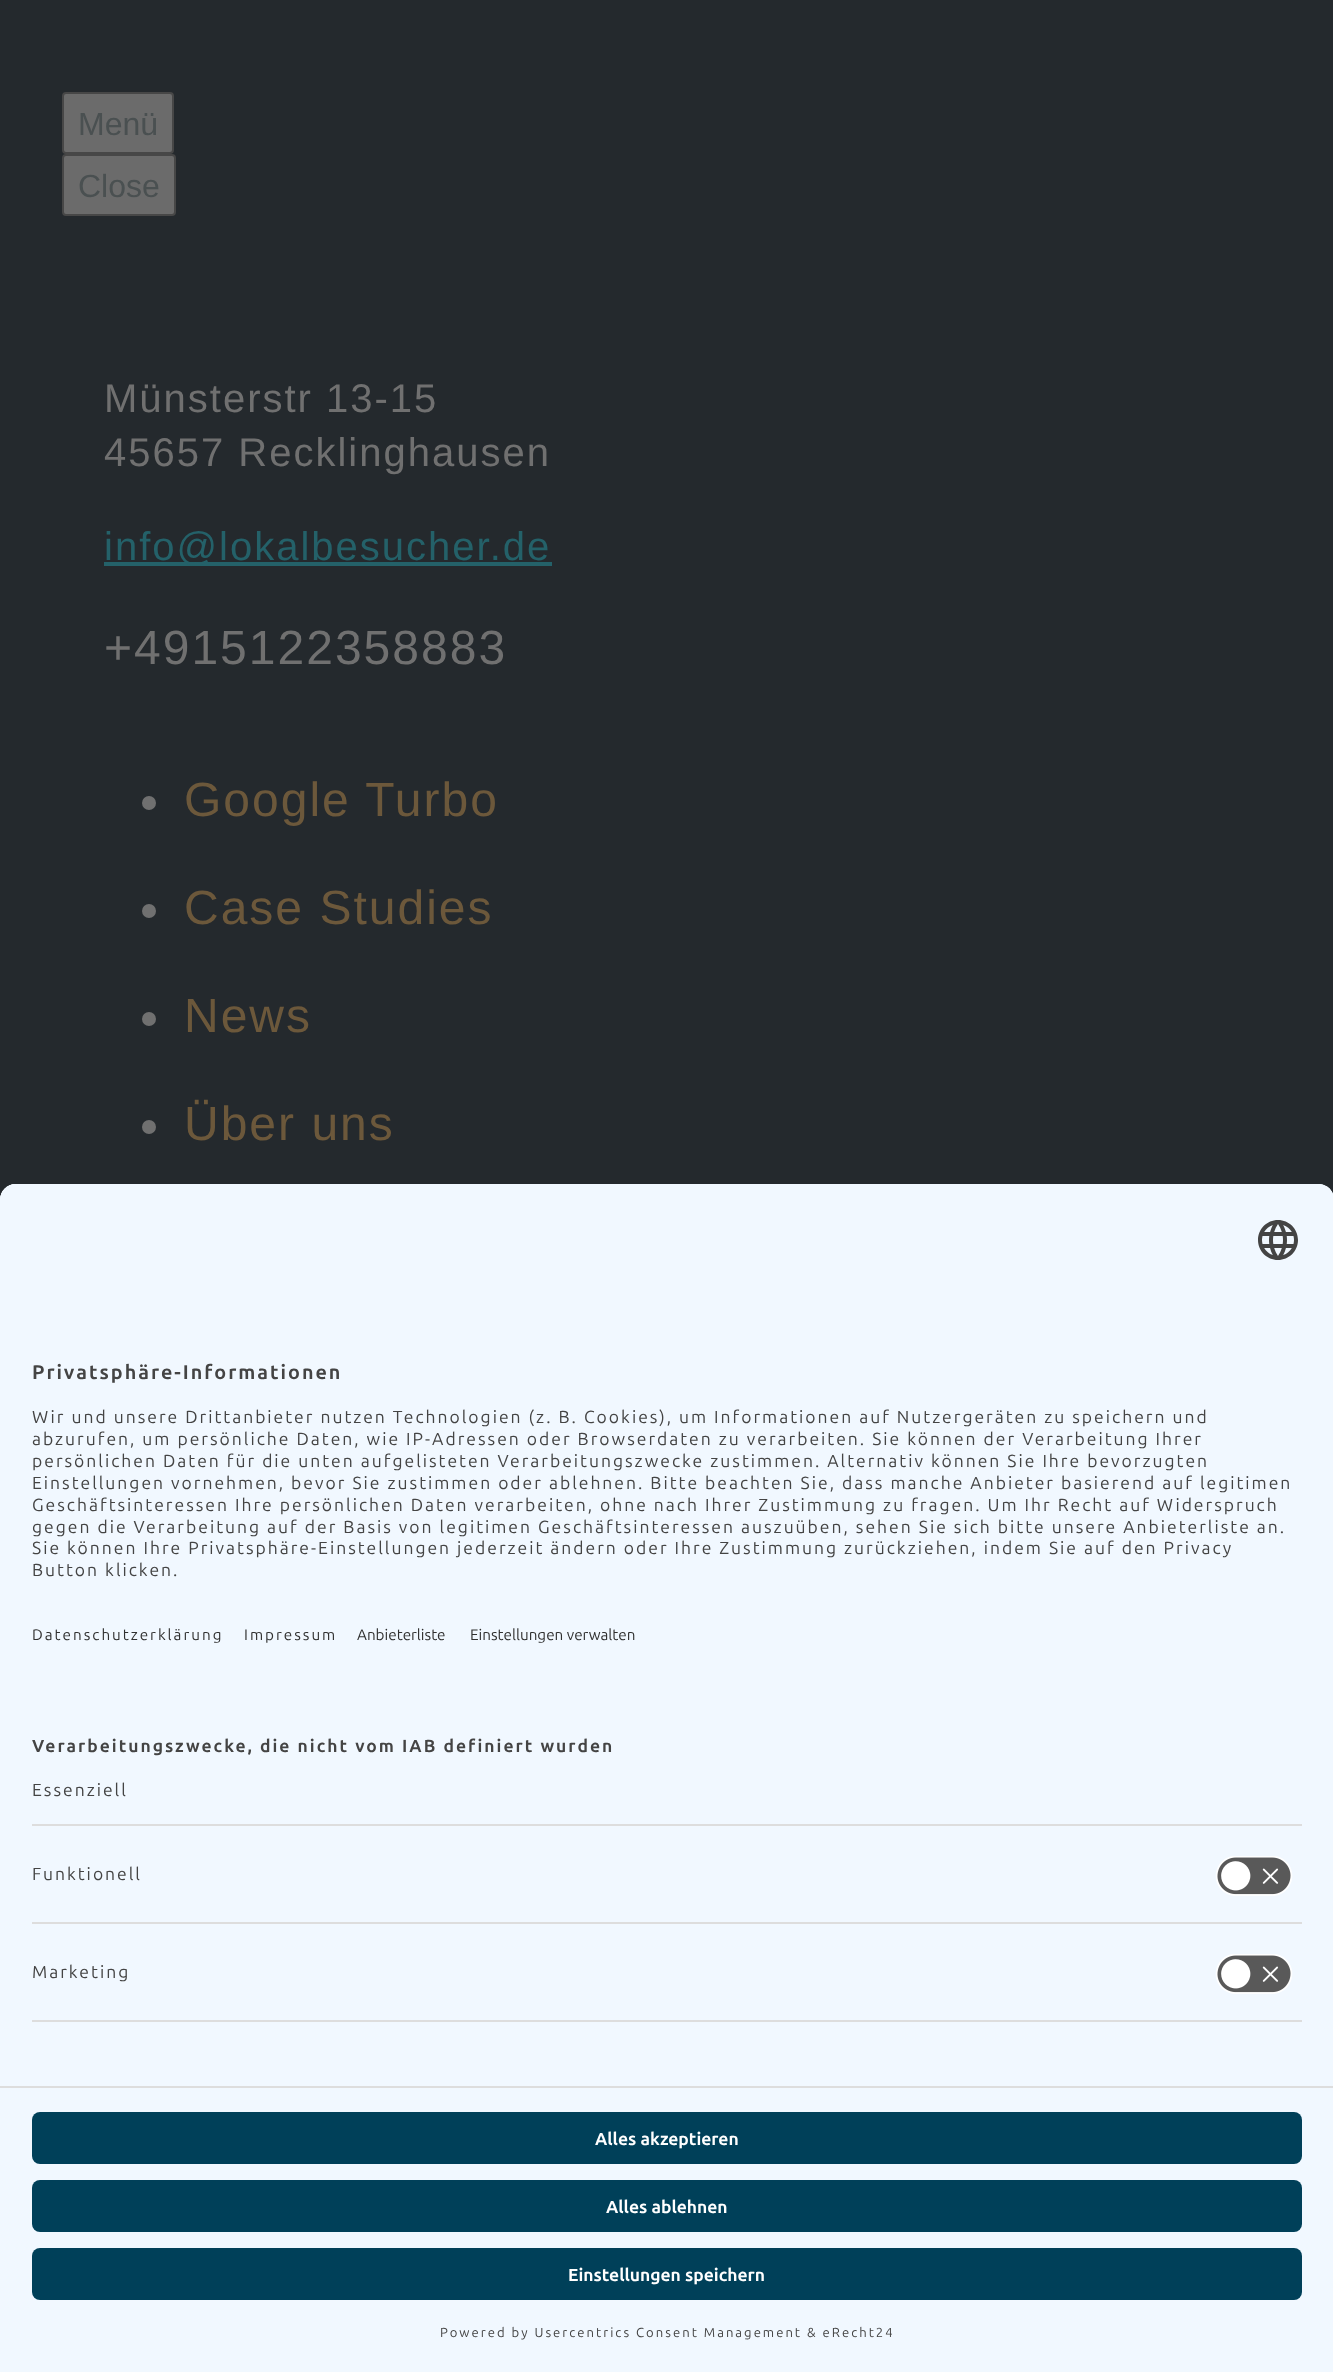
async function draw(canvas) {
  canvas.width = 1333;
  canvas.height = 2372;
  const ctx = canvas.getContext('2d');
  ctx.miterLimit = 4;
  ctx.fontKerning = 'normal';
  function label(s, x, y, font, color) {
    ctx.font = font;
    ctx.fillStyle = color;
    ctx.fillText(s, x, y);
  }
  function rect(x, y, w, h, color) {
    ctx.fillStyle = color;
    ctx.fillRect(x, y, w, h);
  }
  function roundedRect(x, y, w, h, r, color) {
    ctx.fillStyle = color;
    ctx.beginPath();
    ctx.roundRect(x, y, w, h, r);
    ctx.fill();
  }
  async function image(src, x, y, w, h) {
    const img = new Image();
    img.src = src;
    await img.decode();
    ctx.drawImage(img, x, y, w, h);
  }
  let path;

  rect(0, 0, 1333, 2372, '#24292d');
  ctx.fillStyle = '#6b6b6b';
  ctx.beginPath();
  ctx.roundRect(63, 93, 110, 60, 3);
  ctx.fill();
  ctx.strokeStyle = '#474747';
  ctx.lineWidth = 2;
  ctx.stroke();
  label('Menü', 78, 135, '32px Liberation Sans', '#4a5051');
  ctx.fillStyle = '#6b6b6b';
  ctx.beginPath();
  ctx.roundRect(63, 155, 112, 60, 3);
  ctx.fill();
  ctx.stroke();
  label('Close', 78, 197, '32px Liberation Sans', '#4a5051');
  ctx.letterSpacing = '2px';
  label('Münsterstr 13-15', 104, 412, '40px Liberation Sans', '#707070');
  label('45657 Recklinghausen', 104, 466, '40px Liberation Sans', '#707070');
  rect(104, 562, 448, 4, '#246169');
  label('info@lokalbesucher.de', 104, 560, '40px Liberation Sans', '#246169');
  label('+4915122358883', 104, 664, '48px Liberation Sans', '#707070');
  ctx.beginPath();
  ctx.arc(149, 803, 7, 0, 2 * Math.PI);
  ctx.fill();
  label('Google Turbo', 184, 816, '48px Liberation Sans', '#6c583b');
  ctx.fillStyle = '#707070';
  ctx.beginPath();
  ctx.arc(149, 911, 7, 0, 2 * Math.PI);
  ctx.fill();
  label('Case Studies', 184, 924, '48px Liberation Sans', '#6c583b');
  ctx.fillStyle = '#707070';
  ctx.beginPath();
  ctx.arc(149, 1019, 7, 0, 2 * Math.PI);
  ctx.fill();
  label('News', 184, 1032, '48px Liberation Sans', '#6c583b');
  ctx.fillStyle = '#707070';
  ctx.beginPath();
  ctx.arc(149, 1127, 7, 0, 2 * Math.PI);
  ctx.fill();
  label('Über uns', 184, 1140, '48px Liberation Sans', '#6c583b');
  ctx.fillStyle = '#f1f8ff';
  path = new Path2D('M16 1184H1318C1327 1184 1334 1191 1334 1200V2372H0V1200C0 1191 7 1184 16 1184Z');
  ctx.fill(path);
  path = new Path2D('M16 1184H1318C1327 1184 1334 1191 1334 1200V2086H0V1200C0 1191 7 1184 16 1184Z');
  ctx.fill(path);
  path = new Path2D('M16 1184H1318C1327 1184 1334 1191 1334 1200V1712H0V1200C0 1191 7 1184 16 1184Z');
  ctx.fill(path);
  await image('assets/img1.png', 1258, 1220, 40, 40);
  label('Privatsphäre-Informationen', 32, 1379, 'bold 19.75px Ubuntu', '#444');
  label('Wir und unsere Drittanbieter nutzen Technologien (z. B. Cookies), um Informationen auf Nutzergeräten zu speichern und', 32, 1423, '17.5px Ubuntu', '#444');
  label('abzurufen, um persönliche Daten, wie IP-Adressen oder Browserdaten zu verarbeiten. Sie können der Verarbeitung Ihrer', 32, 1445, '17.5px Ubuntu', '#444');
  label('persönlichen Daten für die unten aufgelisteten Verarbeitungszwecke zustimmen. Alternativ können Sie Ihre bevorzugten', 32, 1467, '17.5px Ubuntu', '#444');
  label('Einstellungen vornehmen, bevor Sie zustimmen oder ablehnen. Bitte beachten Sie, dass manche Anbieter basierend auf legitimen', 32, 1489, '17.5px Ubuntu', '#444');
  label('Geschäftsinteressen Ihre persönlichen Daten verarbeiten, ohne nach Ihrer Zustimmung zu fragen. Um Ihr Recht auf Widerspruch', 32, 1511, '17.5px Ubuntu', '#444');
  label('gegen die Verarbeitung auf der Basis von legitimen Geschäftsinteressen auszuüben, sehen Sie sich bitte unsere Anbieterliste an.', 32, 1533, '17.5px Ubuntu', '#444');
  label('Sie können Ihre Privatsphäre-Einstellungen jederzeit ändern oder Ihre Zustimmung zurückziehen, indem Sie auf den Privacy', 32, 1554, '17.5px Ubuntu', '#444');
  label('Button klicken.', 32, 1576, '17.5px Ubuntu', '#444');
  label('Datenschutzerklärung', 32, 1640, '15.25px Ubuntu', '#303030');
  label('Impressum', 244, 1640, '15.25px Ubuntu', '#303030');
  ctx.letterSpacing = '0px';
  label('Anbieterliste', 357, 1640, '15.25px Ubuntu', '#303030');
  label('Einstellungen verwalten', 470, 1640, '15.25px Ubuntu', '#303030');
  ctx.letterSpacing = '2px';
  label('Verarbeitungszwecke, die nicht vom IAB definiert wurden', 32, 1752, 'bold 17.5px Ubuntu', '#444');
  rect(32, 1824, 1270, 2, '#ddd');
  label('Essenziell', 32, 1796, '17.5px Ubuntu', '#444');
  rect(32, 1922, 1270, 2, '#ddd');
  label('Funktionell', 32, 1880, '17.5px Ubuntu', '#444');
  await image('assets/img2.png', 1215, 1856, 78, 40);
  rect(32, 2020, 1270, 2, '#ddd');
  label('Marketing', 32, 1978, '17.5px Ubuntu', '#444');
  await image('assets/img2.png', 1215, 1954, 78, 40);
  rect(0, 2086, 1333, 2, '#ddd');
  roundedRect(32, 2112, 1270, 52, 8, '#004059');
  ctx.letterSpacing = '0px';
  label('Alles akzeptieren', 595, 2145, 'bold 17.5px Ubuntu', '#fff');
  roundedRect(32, 2180, 1270, 52, 8, '#004059');
  label('Alles ablehnen', 606, 2213, 'bold 17.5px Ubuntu', '#fff');
  roundedRect(32, 2248, 1270, 52, 8, '#004059');
  label('Einstellungen speichern', 568, 2281, 'bold 17.5px Ubuntu', '#fff');
  ctx.letterSpacing = '2px';
  label('Powered by Usercentrics Consent Management', 440, 2337, '13.1px Ubuntu', '#444');
  label('& eRecht24', 807, 2337, '13.1px Ubuntu', '#444');
}

draw(document.querySelector('canvas'));
